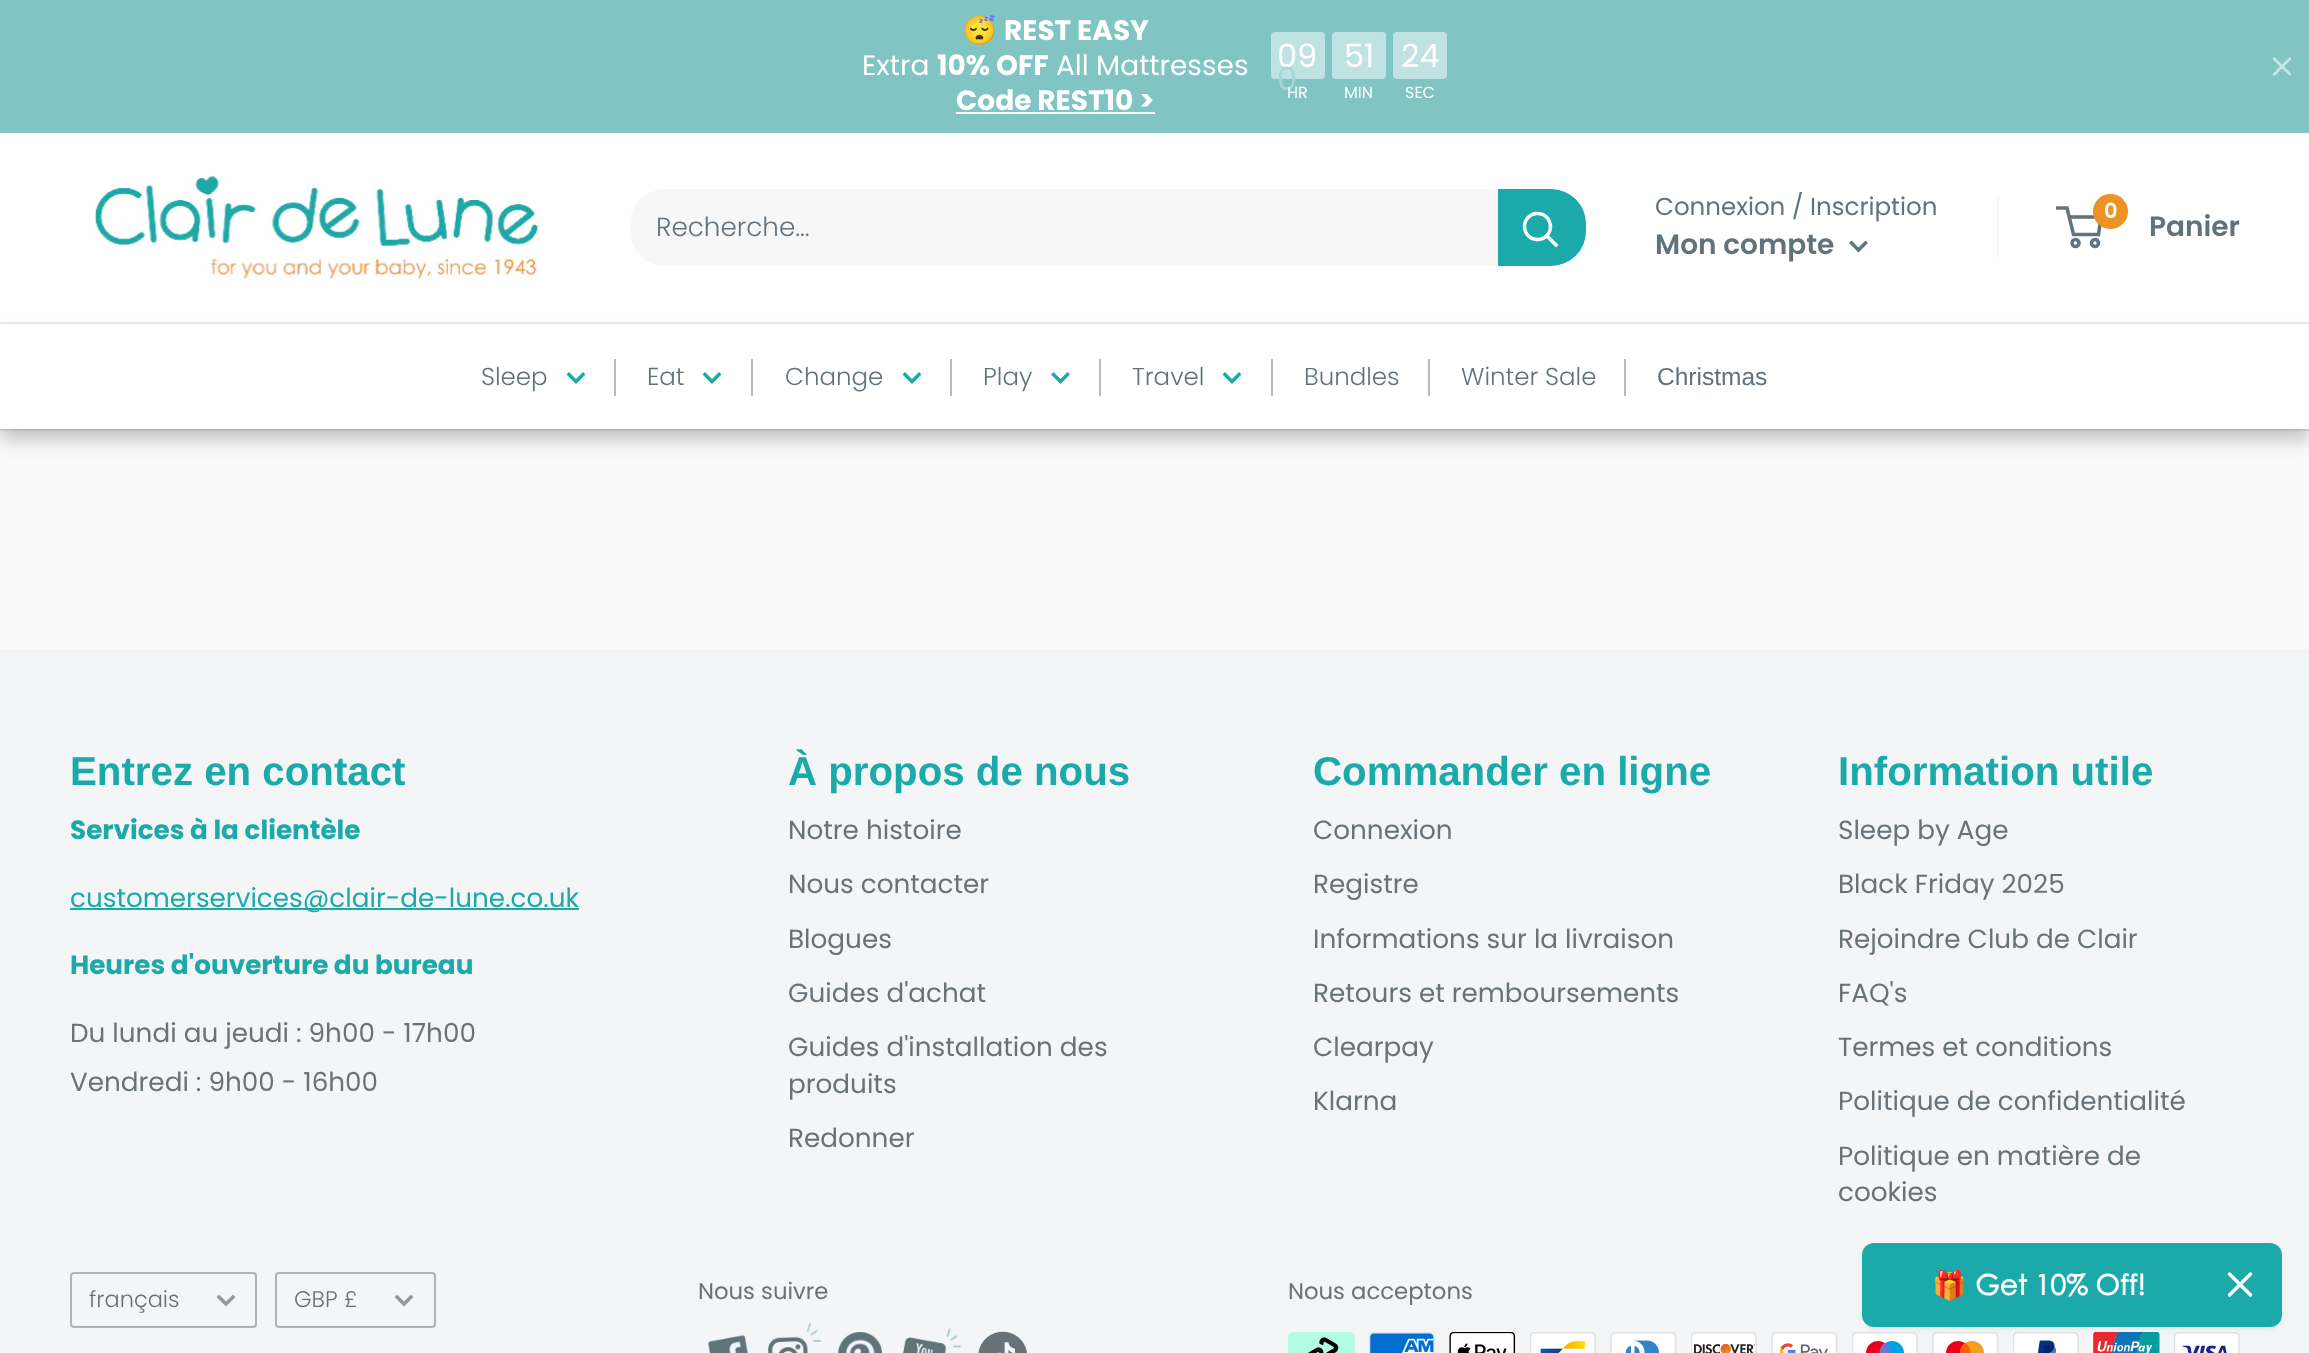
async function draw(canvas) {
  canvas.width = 2309;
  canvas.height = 1353;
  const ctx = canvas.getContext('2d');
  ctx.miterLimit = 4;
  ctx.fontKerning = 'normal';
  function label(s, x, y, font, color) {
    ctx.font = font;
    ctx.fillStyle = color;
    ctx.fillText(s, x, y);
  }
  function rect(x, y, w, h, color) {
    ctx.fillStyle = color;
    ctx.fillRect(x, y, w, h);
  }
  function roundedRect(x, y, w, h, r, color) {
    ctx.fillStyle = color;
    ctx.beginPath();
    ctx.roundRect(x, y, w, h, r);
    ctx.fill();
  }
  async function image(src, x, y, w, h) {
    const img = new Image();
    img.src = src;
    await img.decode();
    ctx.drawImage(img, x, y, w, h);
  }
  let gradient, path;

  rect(0, 0, 2309, 1353, '#fafafa');
  rect(0, 0, 2309, 133, '#80c4c4');
  label('😴', 962, 40, '28px Noto Color Emoji', '#fff');
  label('REST EASY', 1004, 40, 'bold 28px Poppins', '#fff');
  label('Extra', 862, 75, '28px Poppins', '#fff');
  label('10% OFF', 937, 75, 'bold 28px Poppins', '#fff');
  label('All Mattresses', 1056, 75, '28px Poppins', '#fff');
  label('Code REST10 >', 956, 110, 'bold 28px Poppins', '#fff');
  rect(956, 112, 199, 2, '#fff');
  roundedRect(1271, 32, 54, 47, 4, '#c0e2e2');
  label('09', 1277, 67, '32px Poppins', '#fff');
  label('0', 1277, 90, '32px Poppins', '#a6d6d6');
  label('HR', 1287, 98, '16px Poppins', '#fff');
  roundedRect(1332, 32, 54, 47, 4, '#c0e2e2');
  label('51', 1344, 67, '32px Poppins', '#fff');
  label('MIN', 1344, 98, '16px Poppins', '#fff');
  roundedRect(1393, 32, 54, 47, 4, '#c0e2e2');
  label('24', 1401, 67, '32px Poppins', '#fff');
  label('SEC', 1405, 98, '16px Poppins', '#fff');
  await image('assets/img1.png', 2272, 57, 20, 19);
  rect(0, 133, 2309, 189, '#fff');
  rect(0, 322, 2309, 2, '#eaeaea');
  await image('assets/img2.png', 94, 175, 445, 105);
  ctx.fillStyle = '#f7f7f7';
  ctx.beginPath();
  ctx.roundRect(630, 189, 868, 77, [35, 0, 0, 35]);
  ctx.fill();
  label('Recherche...', 656, 236, '300 26.25px Poppins', '#61727c');
  ctx.fillStyle = '#1ca9a9';
  ctx.beginPath();
  ctx.roundRect(1498, 189, 88, 77, [0, 35, 35, 0]);
  ctx.fill();
  path = new Path2D('M1556 245L1547 236');
  ctx.strokeStyle = '#fff';
  ctx.lineWidth = 3.5;
  ctx.lineCap = 'square';
  ctx.stroke(path);
  ctx.beginPath();
  ctx.arc(1537.5, 226.5, 13, 0, 2 * Math.PI);
  ctx.stroke();
  label('Connexion / Inscription', 1655, 215, '24.5px Poppins', '#61727c');
  rect(1997, 198, 2, 59, '#f8f6f5');
  label('Mon compte', 1655, 254, '600 28px Poppins', '#61727c');
  path = new Path2D('M1865.5 243L1858.5 250L1851.5 243');
  ctx.strokeStyle = '#61737c';
  ctx.stroke(path);
  ctx.beginPath();
  ctx.arc(2075.5, 243, 3.5, 0, 2 * Math.PI);
  ctx.stroke();
  ctx.beginPath();
  ctx.arc(2095, 243, 3.5, 0, 2 * Math.PI);
  ctx.stroke();
  path = new Path2D('M2069 217H2101L2098.5 234.5H2073.5L2067 208H2056');
  ctx.lineCap = 'butt';
  ctx.stroke(path);
  ctx.fillStyle = '#ed9225';
  ctx.beginPath();
  ctx.arc(2110.5, 211.5, 17.5, 0, 2 * Math.PI);
  ctx.fill();
  label('0', 2104, 218, '600 21px Poppins', '#fff');
  label('Panier', 2149, 236, '600 28px Poppins', '#61727c');
  rect(0, 324, 2309, 105, '#fff');
  rect(0, 429, 2309, 2, '#dfe3e5');
  ctx.save();
  path = new Path2D('M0 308H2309V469H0ZM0 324H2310V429H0Z');
  ctx.clip(path, 'evenodd');
  ctx.fillStyle = '#00000033';
  ctx.filter = 'blur(9px)';
  ctx.beginPath();
  ctx.rect(0, 336, 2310, 105);
  ctx.fill();
  ctx.filter = 'none';
  ctx.restore();
  label('Sleep', 481, 385, '300 24.5px Poppins', '#61727c');
  path = new Path2D('M583 374.5L576 381.5L569 374.5');
  ctx.strokeStyle = '#1ca9a9';
  ctx.lineCap = 'square';
  ctx.stroke(path);
  rect(614, 359, 2, 37, '#bbb');
  label('Eat', 647, 385, '300 24.5px Poppins', '#61727c');
  path = new Path2D('M719 374.5L712 381.5L705 374.5');
  ctx.stroke(path);
  rect(751, 359, 2, 37, '#bbb');
  label('Change', 785, 385, '300 24.5px Poppins', '#61727c');
  path = new Path2D('M919 374.5L912 381.5L905 374.5');
  ctx.stroke(path);
  rect(950, 359, 2, 37, '#bbb');
  label('Play', 983, 385, '300 24.5px Poppins', '#61727c');
  path = new Path2D('M1067.5 374.5L1060.5 381.5L1053.5 374.5');
  ctx.stroke(path);
  rect(1099, 359, 2, 37, '#bbb');
  label('Travel', 1132, 385, '300 24.5px Poppins', '#61727c');
  path = new Path2D('M1239 374.5L1232 381.5L1225 374.5');
  ctx.stroke(path);
  rect(1271, 359, 2, 37, '#bbb');
  label('Bundles', 1304, 385, '300 24.5px Poppins', '#61727c');
  rect(1428, 359, 2, 37, '#bbb');
  label('Winter Sale', 1461, 385, '300 24.5px Poppins', '#61727c');
  rect(1624, 359, 2, 37, '#bbb');
  label('Christmas', 1657, 385, '24.5px Liberation Sans', '#61727c');
  gradient = ctx.createLinearGradient(2240, 376, 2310, 376);
  gradient.addColorStop(0, '#ffffff1a');
  gradient.addColorStop(0.35, '#ffffff99');
  gradient.addColorStop(1, '#fff');
  ctx.fillStyle = gradient;
  ctx.fillRect(2246, 428, 63, 1);
  rect(0, 649, 2309, 704, '#f3f5f6');
  label('Entrez en contact', 70, 785, 'bold 40.25px Liberation Sans', '#1ca9a9');
  label('Services à la clientèle', 70, 839, 'bold 26.25px Poppins', '#1ca9a9');
  rect(70, 908, 509, 2, '#1ca9a9');
  label('customerservices@clair-de-lune.co.uk', 70, 907, '26.25px Poppins', '#1ca9a9');
  label('Heures d\'ouverture du bureau', 70, 974, 'bold 26.25px Poppins', '#1ca9a9');
  label('Du lundi au jeudi : 9h00 - 17h00', 70, 1042, '26.25px Poppins', '#677279');
  label('Vendredi : 9h00 - 16h00', 70, 1091, '26.25px Poppins', '#677279');
  label('À propos de nous', 788, 785, 'bold 40.25px Liberation Sans', '#1ca9a9');
  label('Notre histoire', 788, 839, '26.25px Poppins', '#677279');
  label('Nous contacter', 788, 893, '26.25px Poppins', '#677279');
  label('Blogues', 788, 948, '26.25px Poppins', '#677279');
  label('Guides d\'achat', 788, 1002, '26.25px Poppins', '#677279');
  label('Guides d\'installation des', 788, 1056, '26.25px Poppins', '#677279');
  label('produits', 788, 1093, '26.25px Poppins', '#677279');
  label('Redonner', 788, 1147, '26.25px Poppins', '#677279');
  label('Commander en ligne', 1313, 785, 'bold 40.25px Liberation Sans', '#1ca9a9');
  label('Connexion', 1313, 839, '26.25px Poppins', '#677279');
  label('Registre', 1313, 893, '26.25px Poppins', '#677279');
  label('Informations sur la livraison', 1313, 948, '26.25px Poppins', '#677279');
  label('Retours et remboursements', 1313, 1002, '26.25px Poppins', '#677279');
  label('Clearpay', 1313, 1056, '26.25px Poppins', '#677279');
  label('Klarna', 1313, 1110, '26.25px Poppins', '#677279');
  label('Information utile', 1838, 785, 'bold 40.25px Liberation Sans', '#1ca9a9');
  label('Sleep by Age', 1838, 839, '26.25px Poppins', '#677279');
  label('Black Friday 2025', 1838, 893, '26.25px Poppins', '#677279');
  label('Rejoindre Club de Clair', 1838, 948, '26.25px Poppins', '#677279');
  label('FAQ\'s', 1838, 1002, '26.25px Poppins', '#677279');
  label('Termes et conditions', 1838, 1056, '26.25px Poppins', '#677279');
  label('Politique de confidentialité', 1838, 1110, '26.25px Poppins', '#677279');
  label('Politique en matière de', 1838, 1165, '26.25px Poppins', '#677279');
  label('cookies', 1838, 1201, '26.25px Poppins', '#677279');
  ctx.fillStyle = '#edf0f1';
  path = new Path2D('M72 1323C72 1324 72 1327 74 1327H254C256 1327 256 1325 256 1323C256 1324 255 1325 254 1325H74C73 1325 72 1324 72 1323Z');
  ctx.fill(path);
  ctx.beginPath();
  ctx.roundRect(71, 1273, 185, 54, 3);
  ctx.strokeStyle = '#67727980';
  ctx.lineWidth = 2;
  ctx.stroke();
  label('français', 89, 1307, '300 22.5px Poppins', '#677279');
  path = new Path2D('M233 1297L226 1304L219 1297');
  ctx.strokeStyle = '#91999f';
  ctx.lineWidth = 3.5;
  ctx.stroke(path);
  ctx.fillStyle = '#edf0f1';
  path = new Path2D('M277 1325C277 1326 278 1327 279 1327H432C433 1327 434 1326 434 1325V1323C434 1324 433 1325 432 1325Z');
  ctx.fill(path);
  ctx.beginPath();
  ctx.roundRect(276, 1273, 159, 54, 3);
  ctx.strokeStyle = '#67727980';
  ctx.lineWidth = 2;
  ctx.stroke();
  label('GBP £', 294, 1307, '300 22.5px Poppins', '#677279');
  path = new Path2D('M411 1297L404 1304L397 1297');
  ctx.strokeStyle = '#91999f';
  ctx.lineWidth = 3.5;
  ctx.stroke(path);
  label('Nous suivre', 698, 1299, '22.75px Poppins', '#677279');
  await image('assets/img3.png', 707, 1335, 42, 18);
  await image('assets/img4.png', 768, 1323, 53, 30);
  await image('assets/img5.png', 838, 1332, 44, 21);
  await image('assets/img6.png', 903, 1328, 58, 25);
  await image('assets/img7.png', 978, 1331, 49, 22);
  label('Nous acceptons', 1288, 1299, '22.75px Poppins', '#677279');
  await image('assets/img8.png', 1288, 1332, 67, 21);
  await image('assets/img9.png', 1369, 1332, 66, 21);
  await image('assets/img10.png', 1449, 1332, 67, 21);
  await image('assets/img11.png', 1530, 1332, 66, 21);
  await image('assets/img12.png', 1610, 1332, 67, 21);
  await image('assets/img13.png', 1691, 1332, 66, 21);
  await image('assets/img14.png', 1771, 1332, 67, 21);
  await image('assets/img15.png', 1852, 1332, 66, 21);
  await image('assets/img16.png', 1932, 1332, 67, 21);
  await image('assets/img17.png', 2013, 1332, 66, 21);
  await image('assets/img18.png', 2093, 1332, 67, 21);
  await image('assets/img19.png', 2174, 1332, 66, 21);
  ctx.fillStyle = '#1e26331a';
  ctx.filter = 'blur(3.5px)';
  ctx.beginPath();
  ctx.roundRect(1864, 1248, 416, 80, 11);
  ctx.fill();
  ctx.filter = 'none';
  roundedRect(1862, 1243, 420, 84, 12, '#1ca9a9');
  label('🎁', 1932, 1295, 'bold 28px Noto Color Emoji', '#fff');
  label('Get 10% Off!', 1975, 1295, 'bold 28px Century Gothic', '#fff');
  path = new Path2D('M2250.5 1274L2229.5 1295M2229.5 1274L2250.5 1295');
  ctx.strokeStyle = '#fff';
  ctx.lineCap = 'round';
  ctx.lineJoin = 'round';
  ctx.stroke(path);
}

draw(document.querySelector('canvas'));
